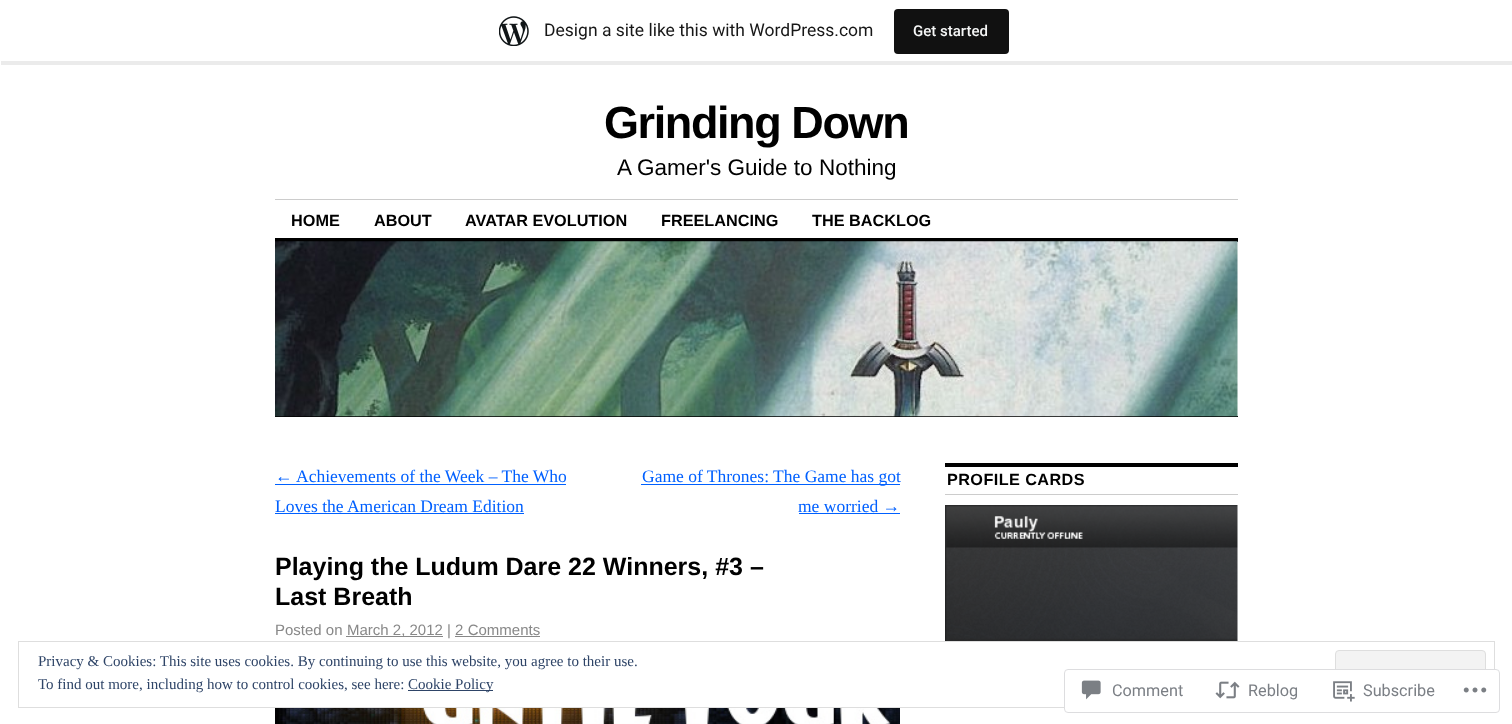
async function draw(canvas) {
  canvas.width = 1512;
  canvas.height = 724;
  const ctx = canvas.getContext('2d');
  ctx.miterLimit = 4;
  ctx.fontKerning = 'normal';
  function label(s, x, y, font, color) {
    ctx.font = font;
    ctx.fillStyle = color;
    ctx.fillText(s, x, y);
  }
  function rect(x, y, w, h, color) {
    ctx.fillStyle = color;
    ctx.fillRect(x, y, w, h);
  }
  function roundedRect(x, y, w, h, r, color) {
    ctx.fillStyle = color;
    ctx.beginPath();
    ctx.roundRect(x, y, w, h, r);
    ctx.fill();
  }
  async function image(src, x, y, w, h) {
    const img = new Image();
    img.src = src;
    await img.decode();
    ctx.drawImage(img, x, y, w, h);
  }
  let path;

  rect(0, 0, 1512, 724, '#fff');
  ctx.fillStyle = '#00000014';
  path = new Path2D('M1 61V65H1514V4H1512V61Z');
  ctx.fill(path);
  await image('assets/img1.png', 499, 16, 30, 30);
  label('Design a site like this with WordPress.com', 544, 36, '17.5px Roboto', '#171717');
  roundedRect(894, 9, 115, 45, 4, '#111');
  label('Get started', 913, 36, '500 15px Roboto', '#f6f7f7');
  ctx.letterSpacing = '-1.4px';
  label('Grinding Down', 604, 138, 'bold 45px Liberation Sans', '#000');
  ctx.letterSpacing = '0px';
  label('A Gamer\'s Guide to Nothing', 617, 175, '22.5px Liberation Sans', '#000');
  rect(275, 199, 963, 1, '#ccc');
  label('HOME', 291, 226, 'bold 16.25px Liberation Sans', '#000');
  label('ABOUT', 374, 226, 'bold 16.25px Liberation Sans', '#000');
  label('AVATAR EVOLUTION', 465, 226, 'bold 16.25px Liberation Sans', '#000');
  label('FREELANCING', 661, 226, 'bold 16.25px Liberation Sans', '#000');
  label('THE BACKLOG', 812, 226, 'bold 16.25px Liberation Sans', '#000');
  rect(275, 238, 963, 4, '#000');
  rect(275, 416, 963, 1, '#000');
  await image('assets/img2.png', 275, 241, 963, 176);
  label('←', 275, 482, '17.5px Liberation Serif', '#0060ff');
  rect(275, 484, 291, 1, '#0060ff');
  label('Achievements of the Week – The Who', 296, 482, '17.5px Liberation Serif', '#0060ff');
  label('Loves the American Dream Edition', 275, 512, '17.5px Liberation Serif', '#0060ff');
  rect(275, 513, 249, 1, '#0060ff');
  rect(641, 484, 259, 1, '#0060ff');
  label('Game of Thrones: The Game has got', 642, 482, '17.5px Liberation Serif', '#0060ff');
  label('me worried →', 798, 512, '17.5px Liberation Serif', '#0060ff');
  rect(799, 513, 101, 1, '#0060ff');
  label('Playing the Ludum Dare 22 Winners, #3 –', 275, 575, 'bold 25px Liberation Sans', '#000');
  label('Last Breath', 275, 605, 'bold 25px Liberation Sans', '#000');
  label('Posted on', 275, 635, '15px Liberation Sans', '#888');
  rect(346, 636, 97, 1, '#888');
  label('March 2, 2012 | 2 Comments', 347, 635, '15px Liberation Sans', '#888');
  rect(455, 636, 85, 1, '#888');
  await image('assets/img3.png', 275, 708, 625, 16);
  rect(945, 463, 293, 4, '#000');
  rect(945, 494, 293, 1, '#ccc');
  ctx.letterSpacing = '0.4px';
  label('PROFILE CARDS', 947, 485, 'bold 16.25px Liberation Sans', '#000');
  await image('assets/img4.png', 945, 505, 293, 136);
  ctx.strokeStyle = '#dedede';
  ctx.strokeRect(18.5, 641.5, 1476, 66);
  ctx.letterSpacing = '0px';
  label('Privacy & Cookies: This site uses cookies. By continuing to use this website, you agree to their use.', 38, 666, '15px Liberation Serif', '#2e4467');
  ctx.fillStyle = '#f3f3f3';
  ctx.beginPath();
  ctx.roundRect(1335.5, 650.5, 150, 48, 3.5);
  ctx.fill();
  ctx.stroke();
  label('To find out more, including how to control cookies, see here:', 38, 689, '15px Liberation Serif', '#2e4467');
  rect(408, 690, 85, 1, '#2e4467');
  label('Cookie Policy', 408, 689, '15px Liberation Serif', '#2e4467');
  roundedRect(1064, 669, 436, 44, 4, '#fffffffa');
  ctx.beginPath();
  ctx.roundRect(1064.5, 669.5, 435, 43, 3.5);
  ctx.strokeStyle = '#dcdcdefa';
  ctx.stroke();
  await image('assets/img5.png', 1081, 680, 20, 20);
  label('Comment', 1112, 696, '16.25px Roboto', '#7b7f85');
  await image('assets/img6.png', 1215, 681, 25, 18);
  label('Reblog', 1248, 696, '16.25px Roboto', '#7b7f85');
  await image('assets/img7.png', 1333, 681, 22, 21);
  label('Subscribe', 1363, 696, '16.25px Roboto', '#7b7f85');
  await image('assets/img8.png', 1463, 687, 24, 6);
}

draw(document.querySelector('canvas'));
